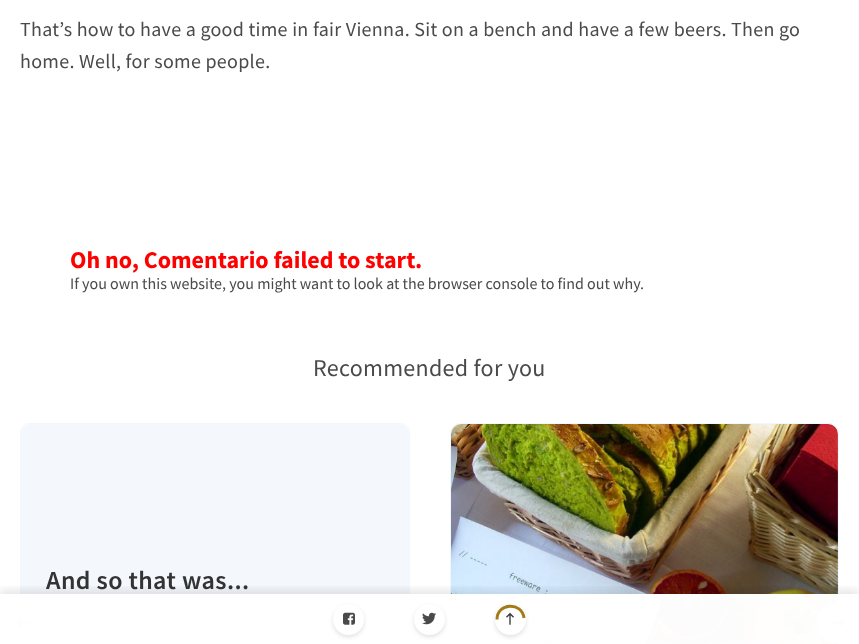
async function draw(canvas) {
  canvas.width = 859;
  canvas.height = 644;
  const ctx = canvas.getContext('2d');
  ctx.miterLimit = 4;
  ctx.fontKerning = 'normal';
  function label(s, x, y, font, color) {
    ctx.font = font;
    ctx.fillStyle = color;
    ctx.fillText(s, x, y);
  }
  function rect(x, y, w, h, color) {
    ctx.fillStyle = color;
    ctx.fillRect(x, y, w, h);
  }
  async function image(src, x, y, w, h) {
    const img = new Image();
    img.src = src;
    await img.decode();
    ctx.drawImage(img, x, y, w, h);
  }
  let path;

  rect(0, 0, 859, 644, '#fff');
  ctx.letterSpacing = '0.3px';
  label('That’s how to have a good time in fair Vienna. Sit on a bench and have a few beers. Then go', 20, 36, '20px Source Sans Pro', '#4a4a4a');
  label('home. Well, for some people.', 20, 68, '20px Source Sans Pro', '#4a4a4a');
  ctx.beginPath();
  ctx.roundRect(20.5, 423.5, 389, 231, 9.5);
  ctx.strokeStyle = '#f0f8ff';
  ctx.stroke();
  rect(21, 509, 388, 135, '#f4f8fd');
  ctx.beginPath();
  ctx.roundRect(450.5, 423.5, 388, 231, 9.5);
  ctx.stroke();
  ctx.beginPath();
  ctx.roundRect(451, 424, 387, 220, [10, 10, 0, 0]);
  ctx.fill();
  await image('assets/img4.png', 451, 424, 387, 220);
  ctx.fillStyle = '#6b6b6b33';
  ctx.filter = 'blur(2px)';
  ctx.beginPath();
  ctx.roundRect(2, 605, 40, 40, 20);
  ctx.fill();
  ctx.filter = 'none';
  ctx.fillStyle = '#fff';
  ctx.beginPath();
  ctx.arc(22, 623, 20, 0, 2 * Math.PI);
  ctx.fill();
  await image('assets/img5.png', 15, 617, 15, 10);
  ctx.fillStyle = '#6b6b6b33';
  ctx.filter = 'blur(2px)';
  ctx.beginPath();
  ctx.roundRect(817, 605, 40, 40, 20);
  ctx.fill();
  ctx.filter = 'none';
  ctx.fillStyle = '#fff';
  ctx.beginPath();
  ctx.arc(837, 623, 20, 0, 2 * Math.PI);
  ctx.fill();
  await image('assets/img6.png', 830, 617, 15, 11);
  ctx.save();
  ctx.beginPath();
  ctx.rect(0, 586, 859, 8);
  ctx.clip();
  ctx.fillStyle = '#0000001a';
  ctx.filter = 'blur(5px)';
  ctx.beginPath();
  ctx.rect(0, 590, 859, 50);
  ctx.fill();
  ctx.filter = 'none';
  ctx.restore();
  rect(0, 594, 859, 50, '#fffffffc');
  ctx.fillStyle = '#6b6b6b33';
  ctx.filter = 'blur(2px)';
  ctx.beginPath();
  ctx.roundRect(333, 606, 31, 31, 15.5);
  ctx.fill();
  ctx.filter = 'none';
  ctx.fillStyle = '#fff';
  ctx.beginPath();
  ctx.arc(348.5, 619.5, 15.5, 0, 2 * Math.PI);
  ctx.fill();
  await image('assets/img1.png', 343, 612, 12, 13);
  ctx.fillStyle = '#6b6b6b33';
  ctx.filter = 'blur(2px)';
  ctx.beginPath();
  ctx.roundRect(414, 606, 31, 31, 15.5);
  ctx.fill();
  ctx.filter = 'none';
  ctx.fillStyle = '#fff';
  ctx.beginPath();
  ctx.arc(429.5, 619.5, 15.5, 0, 2 * Math.PI);
  ctx.fill();
  await image('assets/img2.png', 422, 612, 14, 13);
  ctx.fillStyle = '#6b6b6b33';
  ctx.filter = 'blur(2px)';
  ctx.beginPath();
  ctx.roundRect(495, 606, 31, 31, 15.5);
  ctx.fill();
  ctx.filter = 'none';
  ctx.fillStyle = '#fff';
  ctx.beginPath();
  ctx.arc(510.5, 619.5, 15.5, 0, 2 * Math.PI);
  ctx.fill();
  await image('assets/img3.png', 506, 612, 8, 13);
  path = new Path2D('M497 619.5C497 602.5 522 601.5 524 618');
  ctx.strokeStyle = '#a27b17';
  ctx.lineWidth = 3;
  ctx.stroke(path);
  ctx.letterSpacing = '0px';
  label('Oh no, Comentario failed to start.', 70, 268, 'bold 24px Source Sans Pro', '#f00');
  label('If you own this website, you might want to look at the browser console to find out why.', 70, 289, '16px Source Sans Pro', '#4a4a4a');
  ctx.letterSpacing = '0.3px';
  label('Recommended for you', 313, 376, '24px Source Sans Pro', '#4a4a4a');
  ctx.fillStyle = '#f4f8fd';
  ctx.beginPath();
  ctx.roundRect(21, 424, 388, 85, [10, 10, 0, 0]);
  ctx.fill();
  ctx.letterSpacing = '0.4px';
  label('And so that was...', 46, 589, '600 26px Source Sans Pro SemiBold', '#333');
}

draw(document.querySelector('canvas'));
